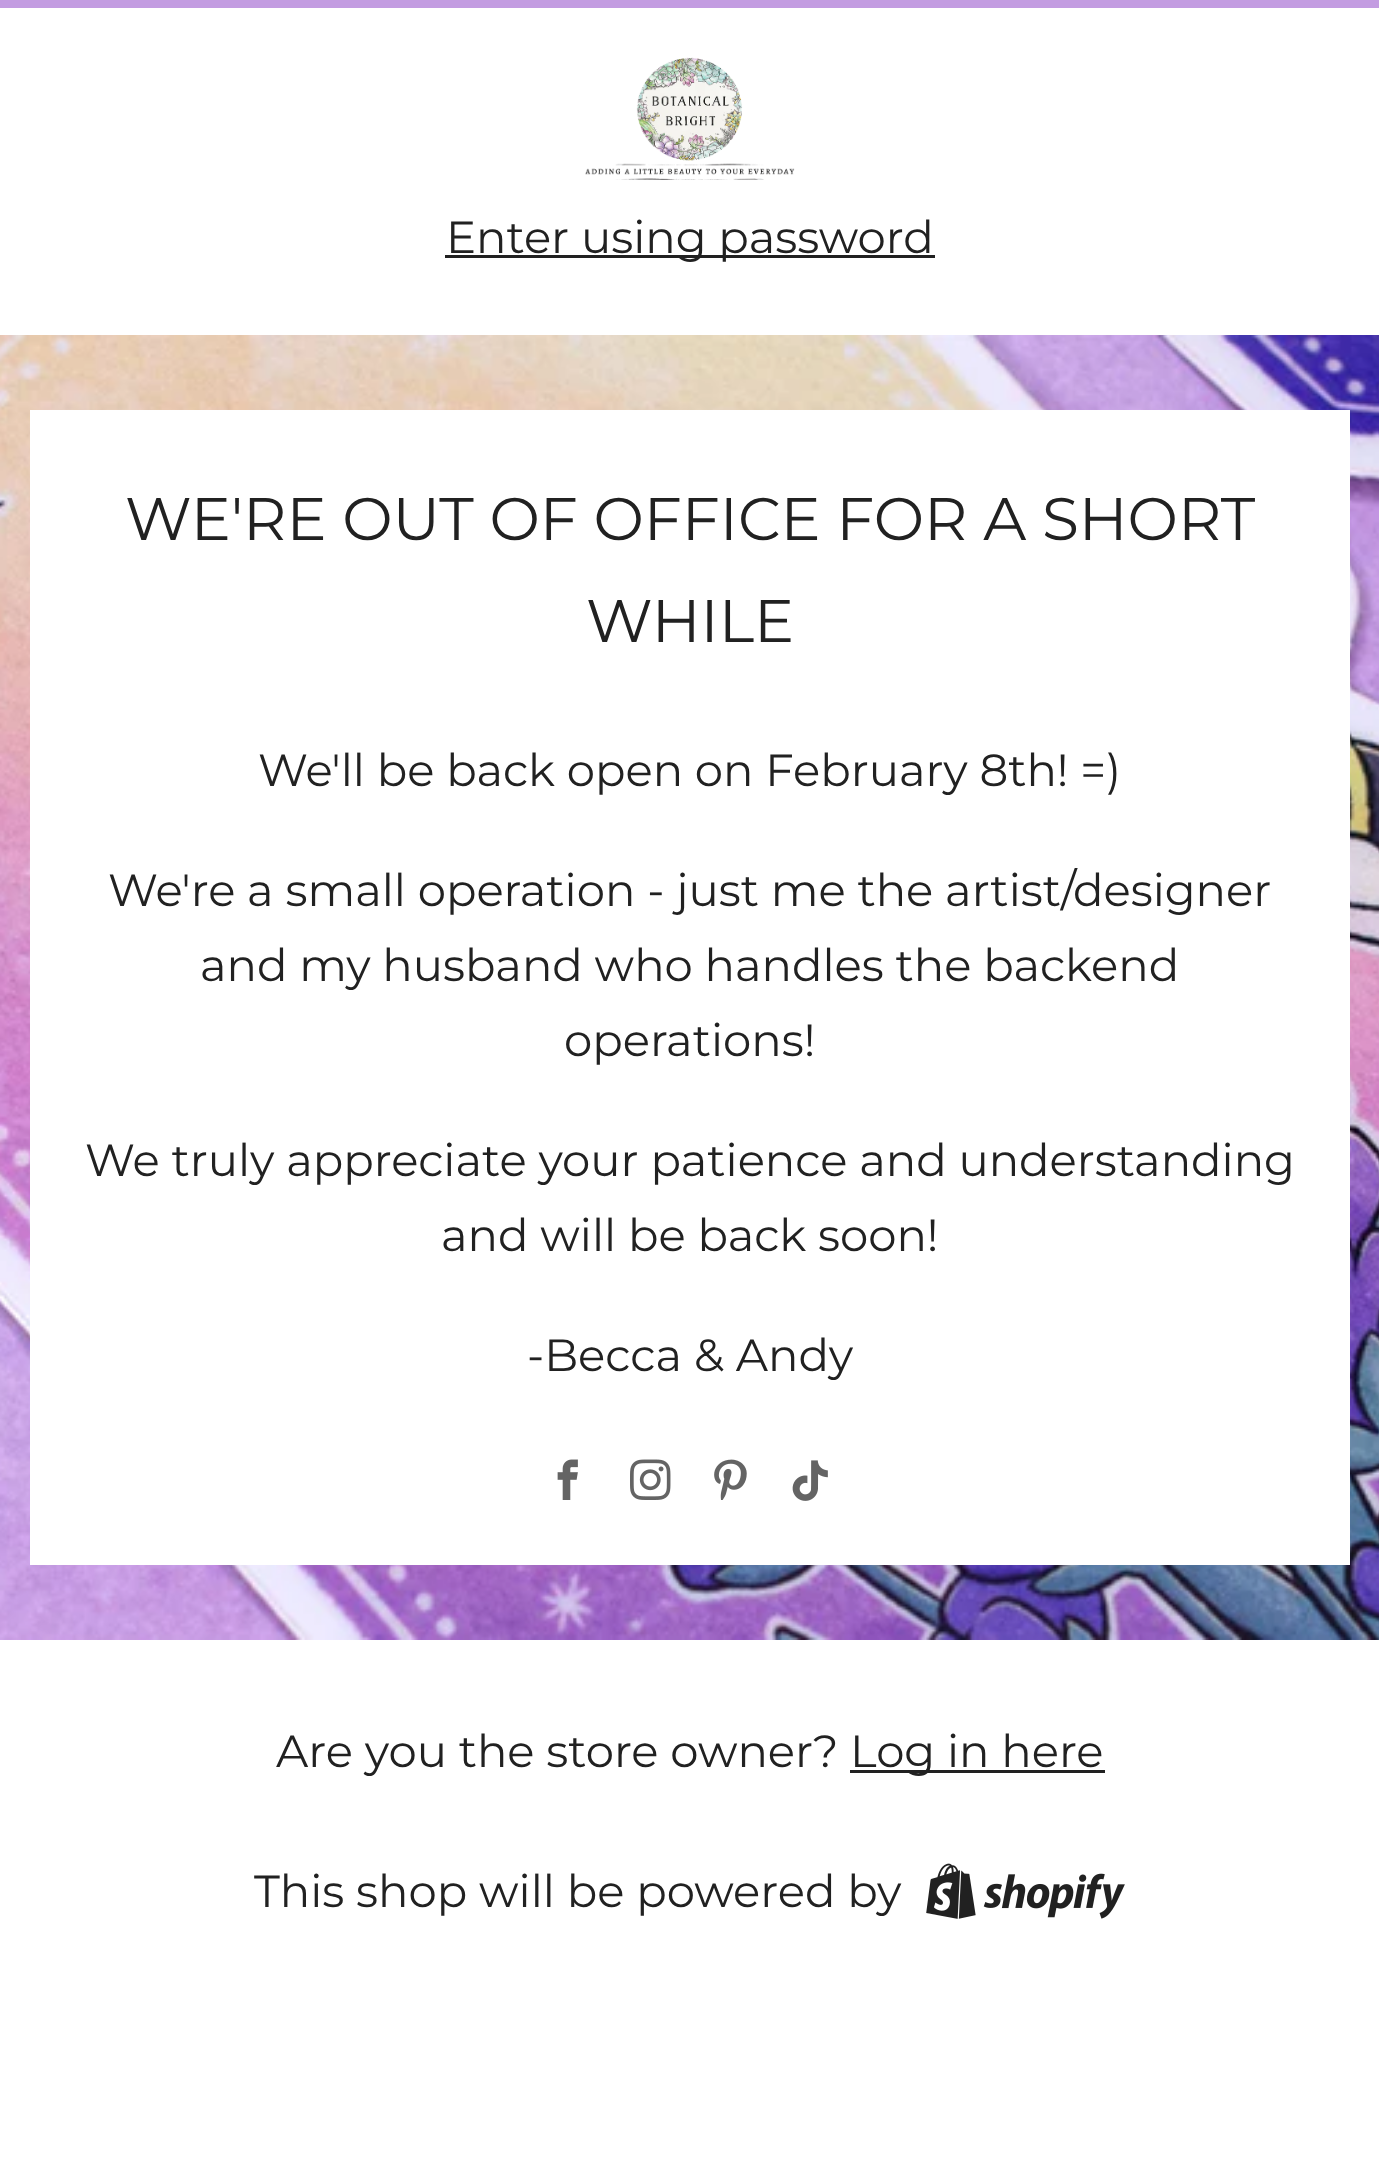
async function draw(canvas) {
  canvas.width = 1379;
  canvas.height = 2182;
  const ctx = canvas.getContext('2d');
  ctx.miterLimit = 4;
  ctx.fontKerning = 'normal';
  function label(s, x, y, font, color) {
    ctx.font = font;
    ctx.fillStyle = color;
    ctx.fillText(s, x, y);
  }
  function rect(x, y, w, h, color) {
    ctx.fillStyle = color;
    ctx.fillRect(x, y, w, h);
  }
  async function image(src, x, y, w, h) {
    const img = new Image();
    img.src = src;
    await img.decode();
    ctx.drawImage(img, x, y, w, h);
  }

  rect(0, 0, 1379, 2182, '#fff');
  rect(0, 0, 1379, 8, '#c39ce1');
  await image('assets/img1.png', 585, 57, 210, 123);
  rect(445, 255, 490, 3, '#212121');
  label('Enter using password', 446, 253, '45px Montserrat', '#212121');
  await image('assets/img2.png', 0, 335, 1379, 1305);
  rect(30, 410, 1320, 1155, '#fff');
  label('WE\'RE OUT OF OFFICE FOR A SHORT', 125, 540, '60px Montserrat', '#212121');
  label('WHILE', 586, 642, '60px Montserrat', '#212121');
  label('We\'ll be back open on February 8th! =)', 258, 786, '45px Montserrat', '#212121');
  label('We\'re a small operation - just me the artist/designer', 108, 906, '45px Montserrat', '#212121');
  label('and my husband who handles the backend', 200, 981, '45px Montserrat', '#212121');
  label('operations!', 564, 1056, '45px Montserrat', '#212121');
  label('We truly appreciate your patience and understanding', 85, 1176, '45px Montserrat', '#212121');
  label('and will be back soon!', 441, 1251, '45px Montserrat', '#212121');
  label('-Becca & Andy', 527, 1371, '45px Montserrat', '#212121');
  await image('assets/img3.png', 557, 1459, 21, 41);
  await image('assets/img4.png', 630, 1459, 41, 41);
  await image('assets/img5.png', 714, 1459, 33, 41);
  await image('assets/img6.png', 792, 1460, 36, 41);
  label('Are you the store owner?', 276, 1767, '45px Montserrat', '#212121');
  rect(850, 1770, 255, 3, '#212121');
  label('Log in here', 850, 1767, '45px Montserrat', '#212121');
  label('This shop will be powered by', 254, 1907, '45px Montserrat', '#212121');
  await image('assets/img7.png', 926, 1863, 199, 56);
}

draw(document.querySelector('canvas'));
